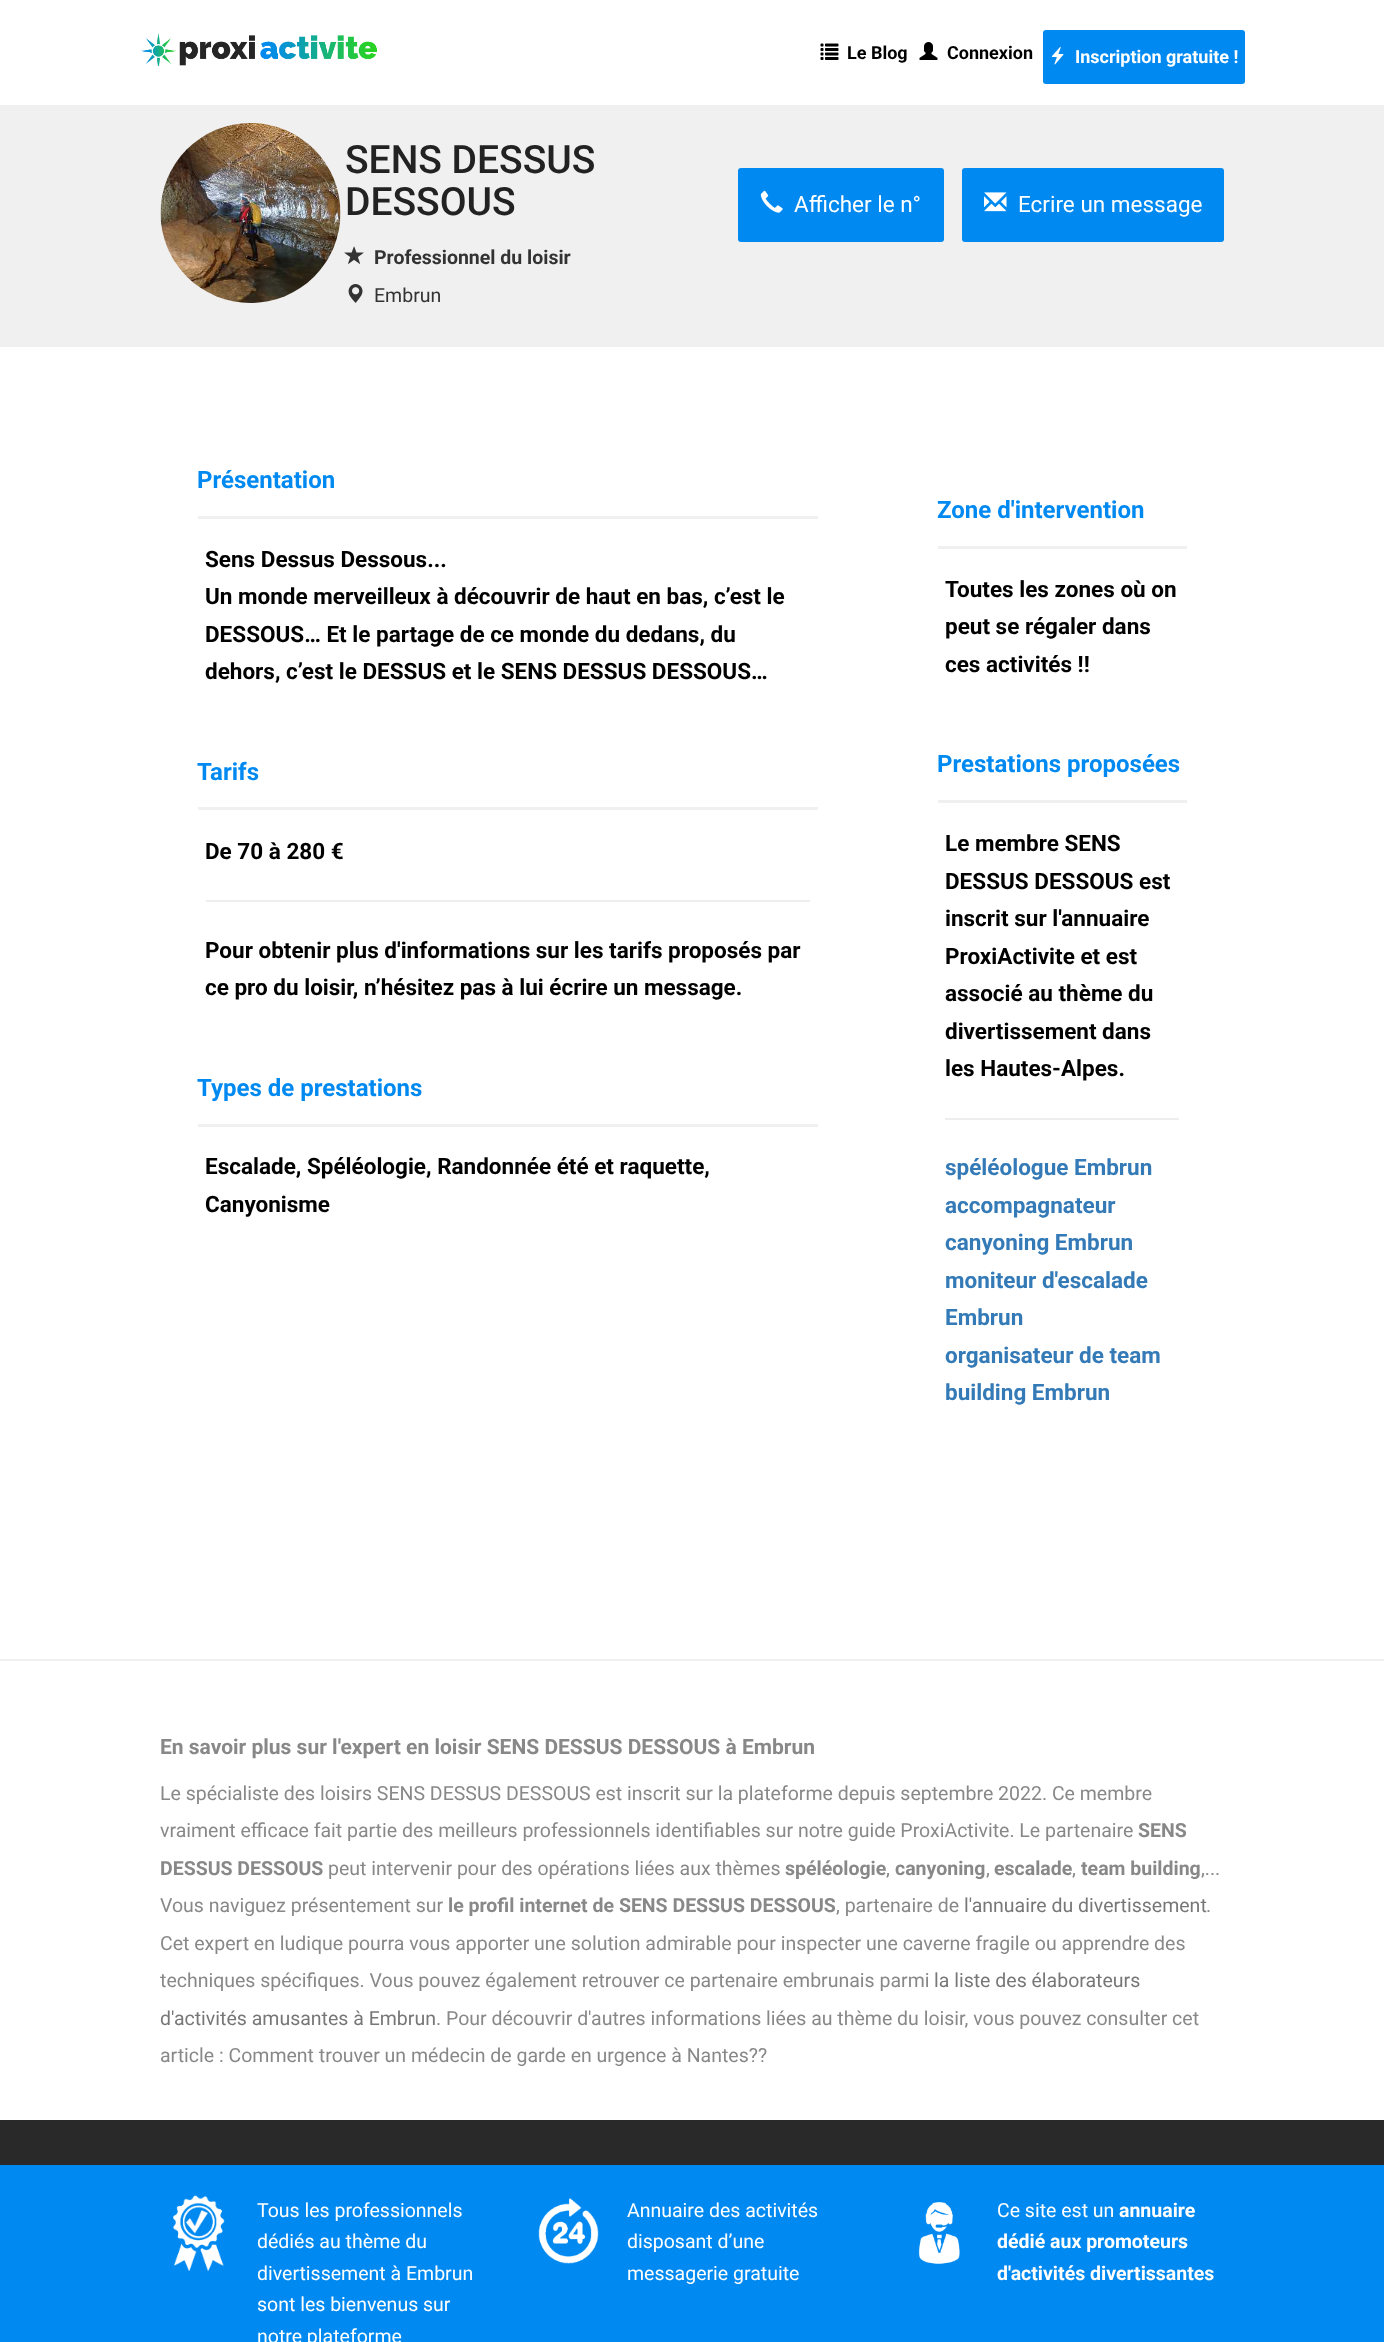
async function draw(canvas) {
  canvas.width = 1384;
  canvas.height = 2342;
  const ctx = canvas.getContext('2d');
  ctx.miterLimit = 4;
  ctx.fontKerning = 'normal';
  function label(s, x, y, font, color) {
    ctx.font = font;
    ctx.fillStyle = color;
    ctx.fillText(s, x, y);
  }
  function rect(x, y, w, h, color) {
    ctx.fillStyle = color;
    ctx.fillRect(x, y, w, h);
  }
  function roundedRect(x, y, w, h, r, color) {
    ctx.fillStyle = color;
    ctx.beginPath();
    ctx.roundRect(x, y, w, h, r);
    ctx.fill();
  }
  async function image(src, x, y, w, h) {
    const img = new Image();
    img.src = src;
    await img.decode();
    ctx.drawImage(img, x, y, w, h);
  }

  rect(0, 0, 1384, 2342, '#fff');
  rect(0, 105, 1384, 242, '#f0f0f0');
  await image('assets/img1.png', 141, 33, 237, 34);
  await image('assets/img2.png', 820, 43, 19, 17);
  label('Le Blog', 847, 59, 'bold 18px Roboto', '#000');
  await image('assets/img3.png', 919, 42, 19, 18);
  label('Connexion', 947, 59, 'bold 18px Roboto', '#000');
  roundedRect(1043, 30, 202, 54, 3, '#008af1');
  await image('assets/img4.png', 1051, 46, 13, 19);
  label('Inscription gratuite !', 1075, 63, 'bold 18px Roboto', '#fff');
  await image('assets/img5.png', 160, 123, 181, 180);
  label('SENS DESSUS', 345, 173, '500 39px Roboto', '#222');
  label('DESSOUS', 345, 215, '500 39px Roboto', '#222');
  await image('assets/img6.png', 344, 246, 20, 18);
  label('Professionnel du loisir', 374, 264, 'bold 19.5px Roboto', '#333');
  await image('assets/img7.png', 348, 284, 15, 19);
  label('Embrun', 374, 302, '19.5px Roboto', '#333');
  roundedRect(738, 168, 206, 74, 3, '#008af1');
  await image('assets/img8.png', 760, 190, 23, 23);
  label('Afficher le n°', 794, 212, '22.5px Roboto', '#fff');
  roundedRect(962, 168, 262, 74, 3, '#008af1');
  await image('assets/img9.png', 984, 192, 23, 20);
  label('Ecrire un message', 1018, 212, '22.5px Roboto', '#fff');
  rect(198, 516, 620, 3, '#f0f0f0');
  label('Présentation', 197, 488, 'bold 24px Roboto', '#008af1');
  label('Sens Dessus Dessous...', 205, 567, 'bold 22.5px Roboto', '#000');
  label('Un monde merveilleux à découvrir de haut en bas, c’est le', 205, 604, 'bold 22.5px Roboto', '#000');
  label('DESSOUS… Et le partage de ce monde du dedans, du', 205, 642, 'bold 22.5px Roboto', '#000');
  label('dehors, c’est le DESSUS et le SENS DESSUS DESSOUS…', 205, 679, 'bold 22.5px Roboto', '#000');
  rect(198, 807, 620, 3, '#f0f0f0');
  label('Tarifs', 197, 780, 'bold 24px Roboto', '#008af1');
  label('De 70 à 280 €', 205, 859, 'bold 22.5px Roboto', '#000');
  rect(206, 900, 604, 2, '#eee');
  label('Pour obtenir plus d\'informations sur les tarifs proposés par', 205, 958, 'bold 22.5px Roboto', '#000');
  label('ce pro du loisir, n’hésitez pas à lui écrire un message.', 205, 995, 'bold 22.5px Roboto', '#000');
  rect(198, 1124, 620, 3, '#f0f0f0');
  label('Types de prestations', 197, 1096, 'bold 24px Roboto', '#008af1');
  label('Escalade, Spéléologie, Randonnée été et raquette,', 205, 1174, 'bold 22.5px Roboto', '#000');
  label('Canyonisme', 205, 1212, 'bold 22.5px Roboto', '#000');
  rect(938, 546, 249, 3, '#f0f0f0');
  label('Zone d\'intervention', 937, 518, 'bold 24px Roboto', '#008af1');
  label('Toutes les zones où on', 945, 597, 'bold 22.5px Roboto', '#000');
  label('peut se régaler dans', 945, 634, 'bold 22.5px Roboto', '#000');
  label('ces activités !!', 945, 672, 'bold 22.5px Roboto', '#000');
  rect(938, 800, 249, 3, '#f0f0f0');
  label('Prestations proposées', 937, 772, 'bold 24px Roboto', '#008af1');
  label('Le membre SENS', 945, 851, 'bold 22.5px Roboto', '#000');
  label('DESSUS DESSOUS est', 945, 889, 'bold 22.5px Roboto', '#000');
  label('inscrit sur l\'annuaire', 945, 926, 'bold 22.5px Roboto', '#000');
  label('ProxiActivite et est', 945, 964, 'bold 22.5px Roboto', '#000');
  label('associé au thème du', 945, 1001, 'bold 22.5px Roboto', '#000');
  label('divertissement dans', 945, 1039, 'bold 22.5px Roboto', '#000');
  label('les Hautes-Alpes.', 945, 1076, 'bold 22.5px Roboto', '#000');
  rect(945, 1118, 234, 2, '#eee');
  label('spéléologue Embrun', 945, 1175, 'bold 22.5px Roboto', '#337ab7');
  label('accompagnateur', 945, 1213, 'bold 22.5px Roboto', '#337ab7');
  label('canyoning Embrun', 945, 1250, 'bold 22.5px Roboto', '#337ab7');
  label('moniteur d\'escalade', 945, 1288, 'bold 22.5px Roboto', '#337ab7');
  label('Embrun', 945, 1325, 'bold 22.5px Roboto', '#337ab7');
  label('organisateur de team', 945, 1363, 'bold 22.5px Roboto', '#337ab7');
  label('building Embrun', 945, 1400, 'bold 22.5px Roboto', '#337ab7');
  rect(0, 1659, 1384, 2, '#f0f0f0');
  label('En savoir plus sur l\'expert en loisir SENS DESSUS DESSOUS à Embrun', 160, 1754, 'bold 21px Roboto', '#888');
  label('Le spécialiste des loisirs SENS DESSUS DESSOUS est inscrit sur la plateforme depuis septembre 2022. Ce membre', 160, 1800, '19.5px Roboto', '#888');
  label('vraiment efficace fait partie des meilleurs professionnels identifiables sur notre guide ProxiActivite. Le partenaire', 160, 1837, '19.5px Roboto', '#888');
  label('SENS', 1138, 1837, 'bold 19.5px Roboto', '#888');
  label('DESSUS DESSOUS', 160, 1875, 'bold 19.5px Roboto', '#888');
  label('peut intervenir pour des opérations liées aux thèmes', 328, 1875, '19.5px Roboto', '#888');
  label('spéléologie', 785, 1875, 'bold 19.5px Roboto', '#888');
  label(',', 886, 1875, '19.5px Roboto', '#888');
  label('canyoning', 895, 1875, 'bold 19.5px Roboto', '#888');
  label(',', 986, 1875, '19.5px Roboto', '#888');
  label('escalade', 994, 1875, 'bold 19.5px Roboto', '#888');
  label(',', 1072, 1875, '19.5px Roboto', '#888');
  label('team building', 1081, 1875, 'bold 19.5px Roboto', '#888');
  label(',...', 1201, 1875, '19.5px Roboto', '#888');
  label('Vous naviguez présentement sur', 160, 1912, '19.5px Roboto', '#888');
  label('le profil internet de SENS DESSUS DESSOUS', 448, 1912, 'bold 19.5px Roboto', '#888');
  label(', partenaire de', 836, 1912, '19.5px Roboto', '#888');
  label('l\'annuaire du divertissement', 964, 1912, '19.5px Roboto', '#777');
  label('.', 1206, 1912, '19.5px Roboto', '#888');
  label('Cet expert en ludique pourra vous apporter une solution admirable pour inspecter une caverne fragile ou apprendre des', 160, 1950, '19.5px Roboto', '#888');
  label('techniques spécifiques. Vous pouvez également retrouver ce partenaire embrunais parmi', 160, 1987, '19.5px Roboto', '#888');
  label('la liste des élaborateurs', 934, 1987, '19.5px Roboto', '#777');
  label('d\'activités amusantes à Embrun', 160, 2025, '19.5px Roboto', '#777');
  label('. Pour découvrir d\'autres informations liées au thème du loisir, vous pouvez consulter cet', 436, 2025, '19.5px Roboto', '#888');
  label('article : Comment trouver un médecin de garde en urgence à Nantes??', 160, 2062, '19.5px Roboto', '#888');
  rect(0, 2120, 1384, 45, '#292929');
  rect(0, 2165, 1384, 177, '#008af1');
  await image('assets/img10.png', 173, 2195, 52, 76);
  label('Tous les professionnels', 257, 2217, '19.5px Roboto', '#fff');
  label('dédiés au thème du', 257, 2248, '19.5px Roboto', '#fff');
  label('divertissement à Embrun', 257, 2280, '19.5px Roboto', '#fff');
  label('sont les bienvenus sur', 257, 2311, '19.5px Roboto', '#fff');
  label('notre plateforme', 257, 2343, '19.5px Roboto', '#fff');
  await image('assets/img11.png', 538, 2198, 61, 66);
  label('Annuaire des activités', 627, 2217, '19.5px Roboto', '#fff');
  label('disposant d’une', 627, 2248, '19.5px Roboto', '#fff');
  label('messagerie gratuite', 627, 2280, '19.5px Roboto', '#fff');
  await image('assets/img12.png', 918, 2202, 42, 62);
  label('Ce site est un', 997, 2217, '19.5px Roboto', '#fff');
  label('annuaire', 1119, 2217, 'bold 19.5px Roboto', '#fff');
  label('dédié aux promoteurs', 997, 2248, 'bold 19.5px Roboto', '#fff');
  label('d\'activités divertissantes', 997, 2280, 'bold 19.5px Roboto', '#fff');
}

draw(document.querySelector('canvas'));
